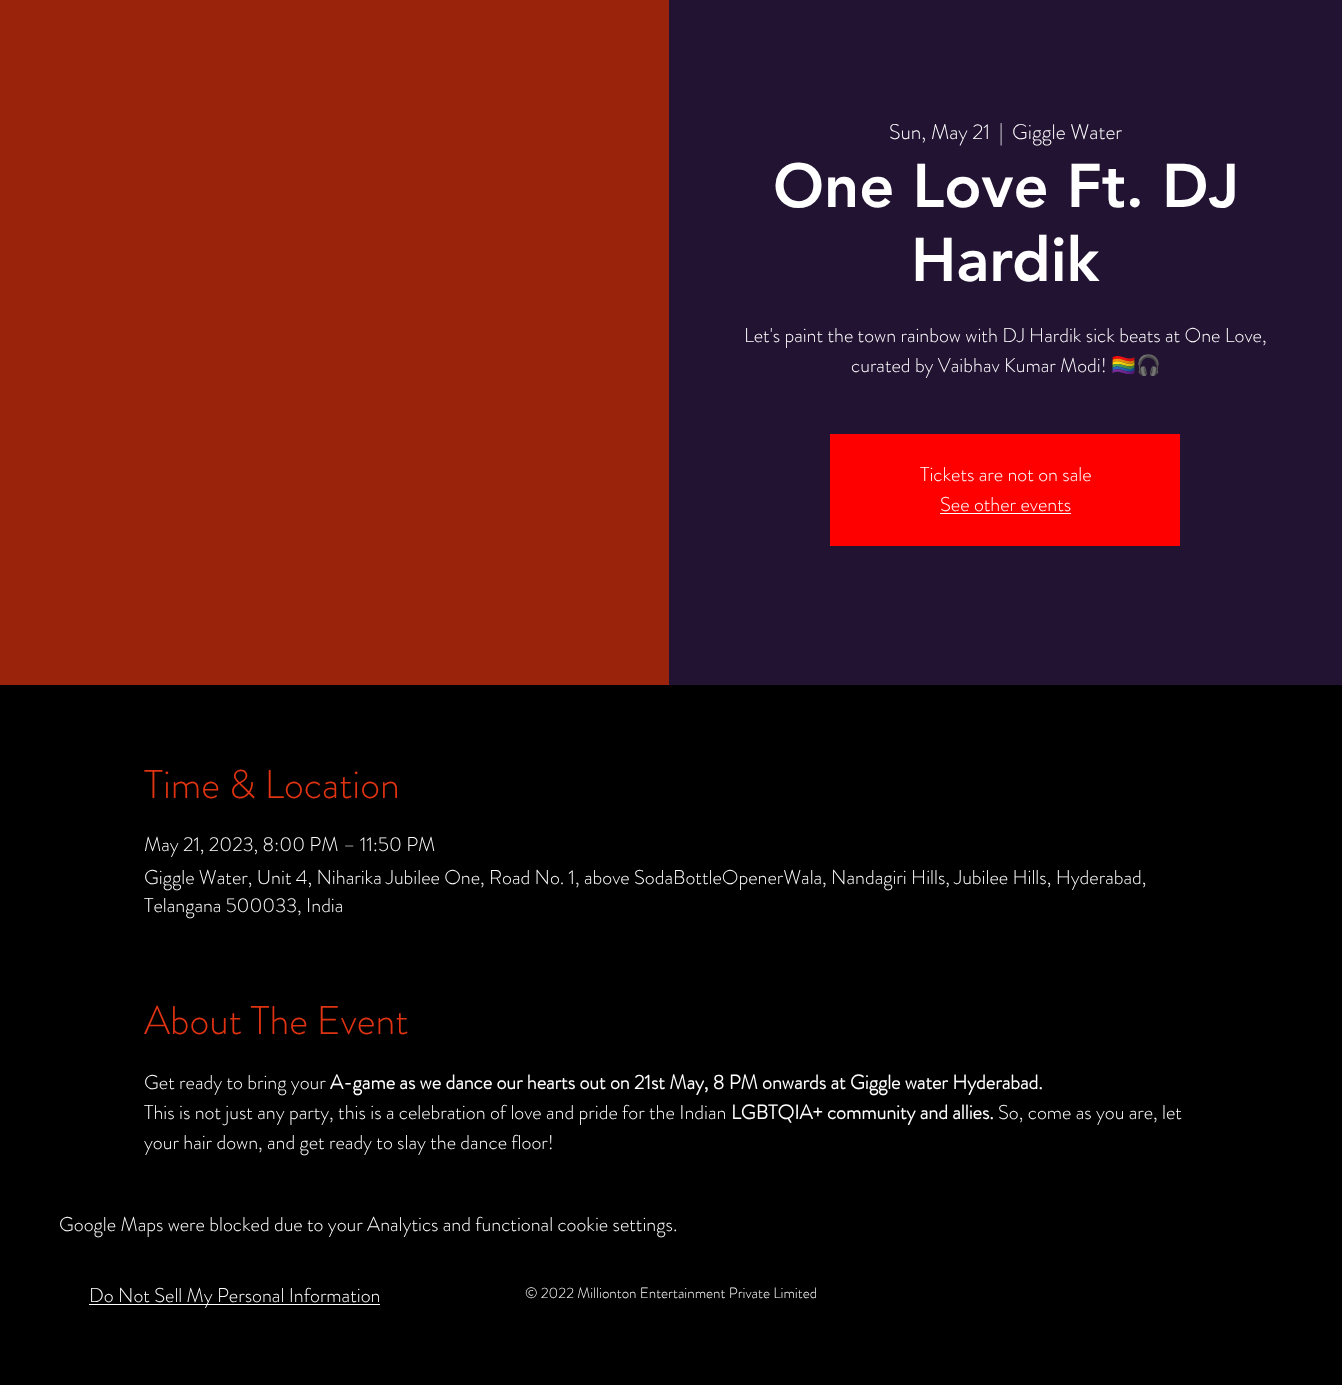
async function draw(canvas) {
  canvas.width = 1342;
  canvas.height = 1385;
  const ctx = canvas.getContext('2d');
  ctx.miterLimit = 4;
  ctx.fontKerning = 'normal';
  function label(s, x, y, font, color) {
    ctx.font = font;
    ctx.fillStyle = color;
    ctx.fillText(s, x, y);
  }
  function rect(x, y, w, h, color) {
    ctx.fillStyle = color;
    ctx.fillRect(x, y, w, h);
  }

  rect(0, 0, 1342, 1385, '#000');
  rect(0, 0, 669, 685, '#99230b');
  rect(669, 0, 673, 685, '#221333');
  label('Sun, May 21', 889, 139, '300 21.25px "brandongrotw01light"', '#fff');
  label('|', 999, 139, '300 21.25px "brandongrotw01light"', '#fff');
  label('Giggle Water', 1012, 139, '300 21.25px "brandongrotw01light"', '#fff');
  label('One Love Ft. DJ', 773, 207, '900 61.25px "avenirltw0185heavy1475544"', '#fff');
  label('Hardik', 911, 281, '900 61.25px "avenirltw0185heavy1475544"', '#fff');
  label('Let\'s paint the town rainbow with DJ Hardik sick beats at One Love,', 744, 342, '300 20px "brandongrotw01light"', '#fff');
  label('curated by Vaibhav Kumar Modi!', 851, 372, '300 20px "brandongrotw01light"', '#fff');
  label('🏳️‍🌈🎧', 1111, 372, '20px Noto Color Emoji', '#fff');
  rect(830, 434, 350, 112, '#f00');
  label('Tickets are not on sale', 920, 481, '300 20px "brandongrotw01light"', '#fff');
  label('See other events', 940, 511, '300 20px "brandongrotw01light"', '#fff');
  rect(940, 513, 131, 1, '#fff');
  label('Time & Location', 144, 798, '300 40px "brandongrotw01light"', '#df3311');
  label('May 21, 2023, 8:00 PM – 11:50 PM', 144, 851, '300 20px "brandongrotw01light"', '#fff');
  label('Giggle Water, Unit 4, Niharika Jubilee One, Road No. 1, above SodaBottleOpenerWala, Nandagiri Hills, Jubilee Hills, Hyderabad,', 144, 884, '300 20px "brandongrotw01light"', '#fff');
  label('Telangana 500033, India', 144, 912, '300 20px "brandongrotw01light"', '#fff');
  label('About The Event', 144, 1034, '300 40px "brandongrotw01light"', '#df3311');
  label('Get ready to bring your', 144, 1089, '300 20px "brandongrotw01light"', '#fff');
  label('A-game as we dance our hearts out on 21st May, 8 PM onwards at Giggle water Hyderabad.', 330, 1089, 'bold 20px "brandongrotw01light"', '#fff');
  label('This is not just any party, this is a celebration of love and pride for the Indian', 144, 1119, '300 20px "brandongrotw01light"', '#fff');
  label('LGBTQIA+ community and allies.', 731, 1119, 'bold 20px "brandongrotw01light"', '#fff');
  label('So, come as you are, let', 998, 1119, '300 20px "brandongrotw01light"', '#fff');
  label('your hair down, and get ready to slay the dance floor!', 144, 1149, '300 20px "brandongrotw01light"', '#fff');
  label('Google Maps were blocked due to your Analytics and functional cookie settings.', 59, 1231, '300 20px "brandongrotw01light"', '#fff');
  rect(89, 1304, 291, 1, '#fff');
  label('Do Not Sell My Personal Information', 89, 1302, '300 20px "brandongrotw01light"', '#fff');
  label('© 2022 Millionton Entertainment Private Limited', 525, 1298, '300 15px "brandongrotw01light"', '#fff');
}

draw(document.querySelector('canvas'));
